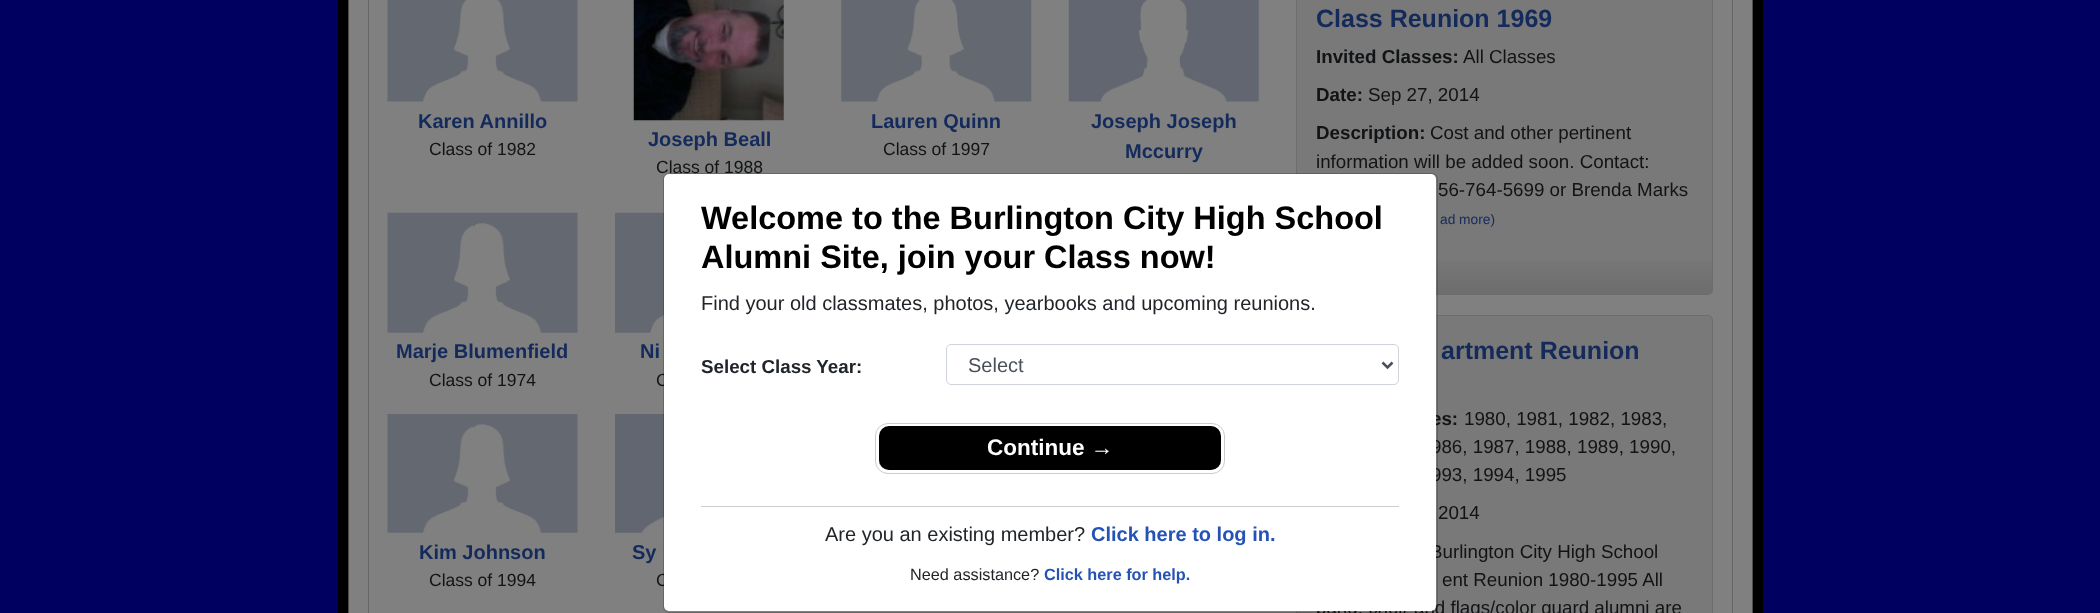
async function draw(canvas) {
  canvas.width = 2100;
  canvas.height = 613;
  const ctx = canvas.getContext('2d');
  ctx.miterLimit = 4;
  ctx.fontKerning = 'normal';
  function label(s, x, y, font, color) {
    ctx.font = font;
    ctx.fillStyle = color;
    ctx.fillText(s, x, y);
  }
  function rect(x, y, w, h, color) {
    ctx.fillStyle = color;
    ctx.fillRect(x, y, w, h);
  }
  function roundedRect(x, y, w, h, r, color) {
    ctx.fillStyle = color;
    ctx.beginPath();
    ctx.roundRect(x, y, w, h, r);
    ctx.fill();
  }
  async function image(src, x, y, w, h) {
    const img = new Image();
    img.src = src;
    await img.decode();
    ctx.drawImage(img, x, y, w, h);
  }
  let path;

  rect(0, 0, 2100, 613, '#000061');
  rect(349, 0, 1403, 613, '#808080');
  ctx.strokeStyle = '#000';
  ctx.lineWidth = 10;
  ctx.strokeRect(343, -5, 1415, 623);
  ctx.strokeStyle = '#4d4d4d';
  ctx.lineWidth = 1;
  ctx.strokeRect(348.5, -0.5, 1404, 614);
  ctx.strokeStyle = '#666';
  ctx.strokeRect(368.5, -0.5, 1364, 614);
  await image('assets/img1.png', 387, 0, 191, 102);
  label('Karen Annillo', 418, 128, 'bold 20px Liberation Sans', '#132a5b');
  label('Class of 1982', 429, 155, '17.5px Liberation Sans', '#111315');
  await image('assets/img2.png', 633, 0, 151, 121);
  label('Joseph Beall', 648, 146, 'bold 20px Liberation Sans', '#132a5b');
  label('Class of 1988', 656, 173, '17.5px Liberation Sans', '#111315');
  await image('assets/img3.png', 841, 0, 191, 102);
  label('Lauren Quinn', 871, 128, 'bold 20px Liberation Sans', '#132a5b');
  label('Class of 1997', 883, 155, '17.5px Liberation Sans', '#111315');
  await image('assets/img4.png', 1068, 0, 191, 102);
  label('Joseph Joseph', 1091, 128, 'bold 20px Liberation Sans', '#132a5b');
  label('Mccurry', 1125, 158, 'bold 20px Liberation Sans', '#132a5b');
  await image('assets/img5.png', 387, 212, 191, 121);
  label('Marje Blumenfield', 396, 358, 'bold 20px Liberation Sans', '#132a5b');
  label('Class of 1974', 429, 386, '17.5px Liberation Sans', '#111315');
  await image('assets/img6.png', 615, 212, 49, 121);
  label('Ni', 640, 358, 'bold 20px Liberation Sans', '#132a5b');
  label('C', 656, 386, '17.5px Liberation Sans', '#111315');
  await image('assets/img7.png', 387, 414, 191, 119);
  label('Kim Johnson', 419, 559, 'bold 20px Liberation Sans', '#132a5b');
  label('Class of 1994', 429, 586, '17.5px Liberation Sans', '#111315');
  await image('assets/img8.png', 615, 414, 49, 119);
  label('Sy', 632, 559, 'bold 20px Liberation Sans', '#132a5b');
  label('C', 656, 586, '17.5px Liberation Sans', '#111315');
  roundedRect(1296, -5, 417, 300, 5, '#797979');
  await image('assets/img9.png', 1436, 261, 277, 33);
  ctx.beginPath();
  ctx.roundRect(1296.5, -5.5, 416, 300, 4.5);
  ctx.strokeStyle = '#6d6d6d';
  ctx.stroke();
  label('Class Reunion 1969', 1316, 27, 'bold 25px Liberation Sans', '#132a5b');
  label('Invited Classes:', 1316, 63, 'bold 18.75px Liberation Sans', '#111315');
  label('All Classes', 1463, 63, '18.75px Liberation Sans', '#111315');
  label('Date:', 1316, 101, 'bold 18.75px Liberation Sans', '#111315');
  label('Sep 27, 2014', 1368, 101, '18.75px Liberation Sans', '#111315');
  label('Description:', 1316, 139, 'bold 18.75px Liberation Sans', '#111315');
  label('Cost and other pertinent', 1430, 139, '18.75px Liberation Sans', '#111315');
  label('information will be added soon. Contact:', 1316, 168, '18.75px Liberation Sans', '#111315');
  label('56-764-5699 or Brenda Marks', 1438, 196, '18.75px Liberation Sans', '#111315');
  label('ad more)', 1440, 224, '13.75px Liberation Sans', '#132a5b');
  ctx.fillStyle = '#797979';
  ctx.beginPath();
  ctx.roundRect(1296.5, 315.5, 416, 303, 4.5);
  ctx.fill();
  ctx.stroke();
  label('artment Reunion', 1441, 359, 'bold 25px Liberation Sans', '#132a5b');
  label('es:', 1431, 425, 'bold 18.75px Liberation Sans', '#111315');
  label('1980, 1981, 1982, 1983,', 1464, 425, '18.75px Liberation Sans', '#111315');
  label('986, 1987, 1988, 1989, 1990,', 1431, 453, '18.75px Liberation Sans', '#111315');
  label('993, 1994, 1995', 1431, 481, '18.75px Liberation Sans', '#111315');
  label('2014', 1438, 519, '18.75px Liberation Sans', '#111315');
  label('Burlington City High School', 1430, 558, '18.75px Liberation Sans', '#111315');
  label('ent Reunion 1980-1995 All', 1442, 586, '18.75px Liberation Sans', '#111315');
  label('band, choir and flags/color guard alumni are', 1316, 614, '18.75px Liberation Sans', '#111315');
  roundedRect(664, 174, 772, 437, 5, '#fff');
  ctx.beginPath();
  ctx.roundRect(663.5, 173.5, 774, 439, 5.5);
  ctx.strokeStyle = '#00000033';
  ctx.stroke();
  label('Welcome to the Burlington City High School', 701, 229, 'bold 32.5px Liberation Sans', '#000');
  label('Alumni Site, join your Class now!', 701, 268, 'bold 32.5px Liberation Sans', '#000');
  label('Find your old classmates, photos, yearbooks and upcoming reunions.', 701, 310, '20px Liberation Sans', '#212529');
  label('Select Class Year:', 701, 373, 'bold 18.75px Liberation Sans', '#212529');
  ctx.beginPath();
  ctx.roundRect(946.5, 344.5, 452, 40, 4.5);
  ctx.strokeStyle = '#ced4da';
  ctx.stroke();
  path = new Path2D('M1382.5 362.5L1387.5 367.5L1392.5 362.5');
  ctx.strokeStyle = '#495057';
  ctx.lineWidth = 2.5;
  ctx.stroke(path);
  label('Select', 968, 372, '20px Liberation Sans', '#495057');
  ctx.beginPath();
  ctx.roundRect(875.5, 423.5, 349, 50, 12.5);
  ctx.strokeStyle = '#ccc';
  ctx.lineWidth = 1;
  ctx.stroke();
  roundedRect(879, 426, 342, 44, 10, '#000');
  await image('assets/img10.png', 879, 461, 342, 9);
  label('Continue →', 987, 455, 'bold 22.5px Liberation Sans', '#fff');
  rect(701, 506, 698, 1, '#ccc');
  label('Are you an existing member?', 825, 541, '20px Liberation Sans', '#212529');
  label('Click here to log in.', 1091, 541, 'bold 20px Liberation Sans', '#2553b5');
  label('Need assistance?', 910, 580, '16.25px Liberation Sans', '#212529');
  label('Click here for help.', 1044, 580, 'bold 16.25px Liberation Sans', '#2553b5');
}

draw(document.querySelector('canvas'));
